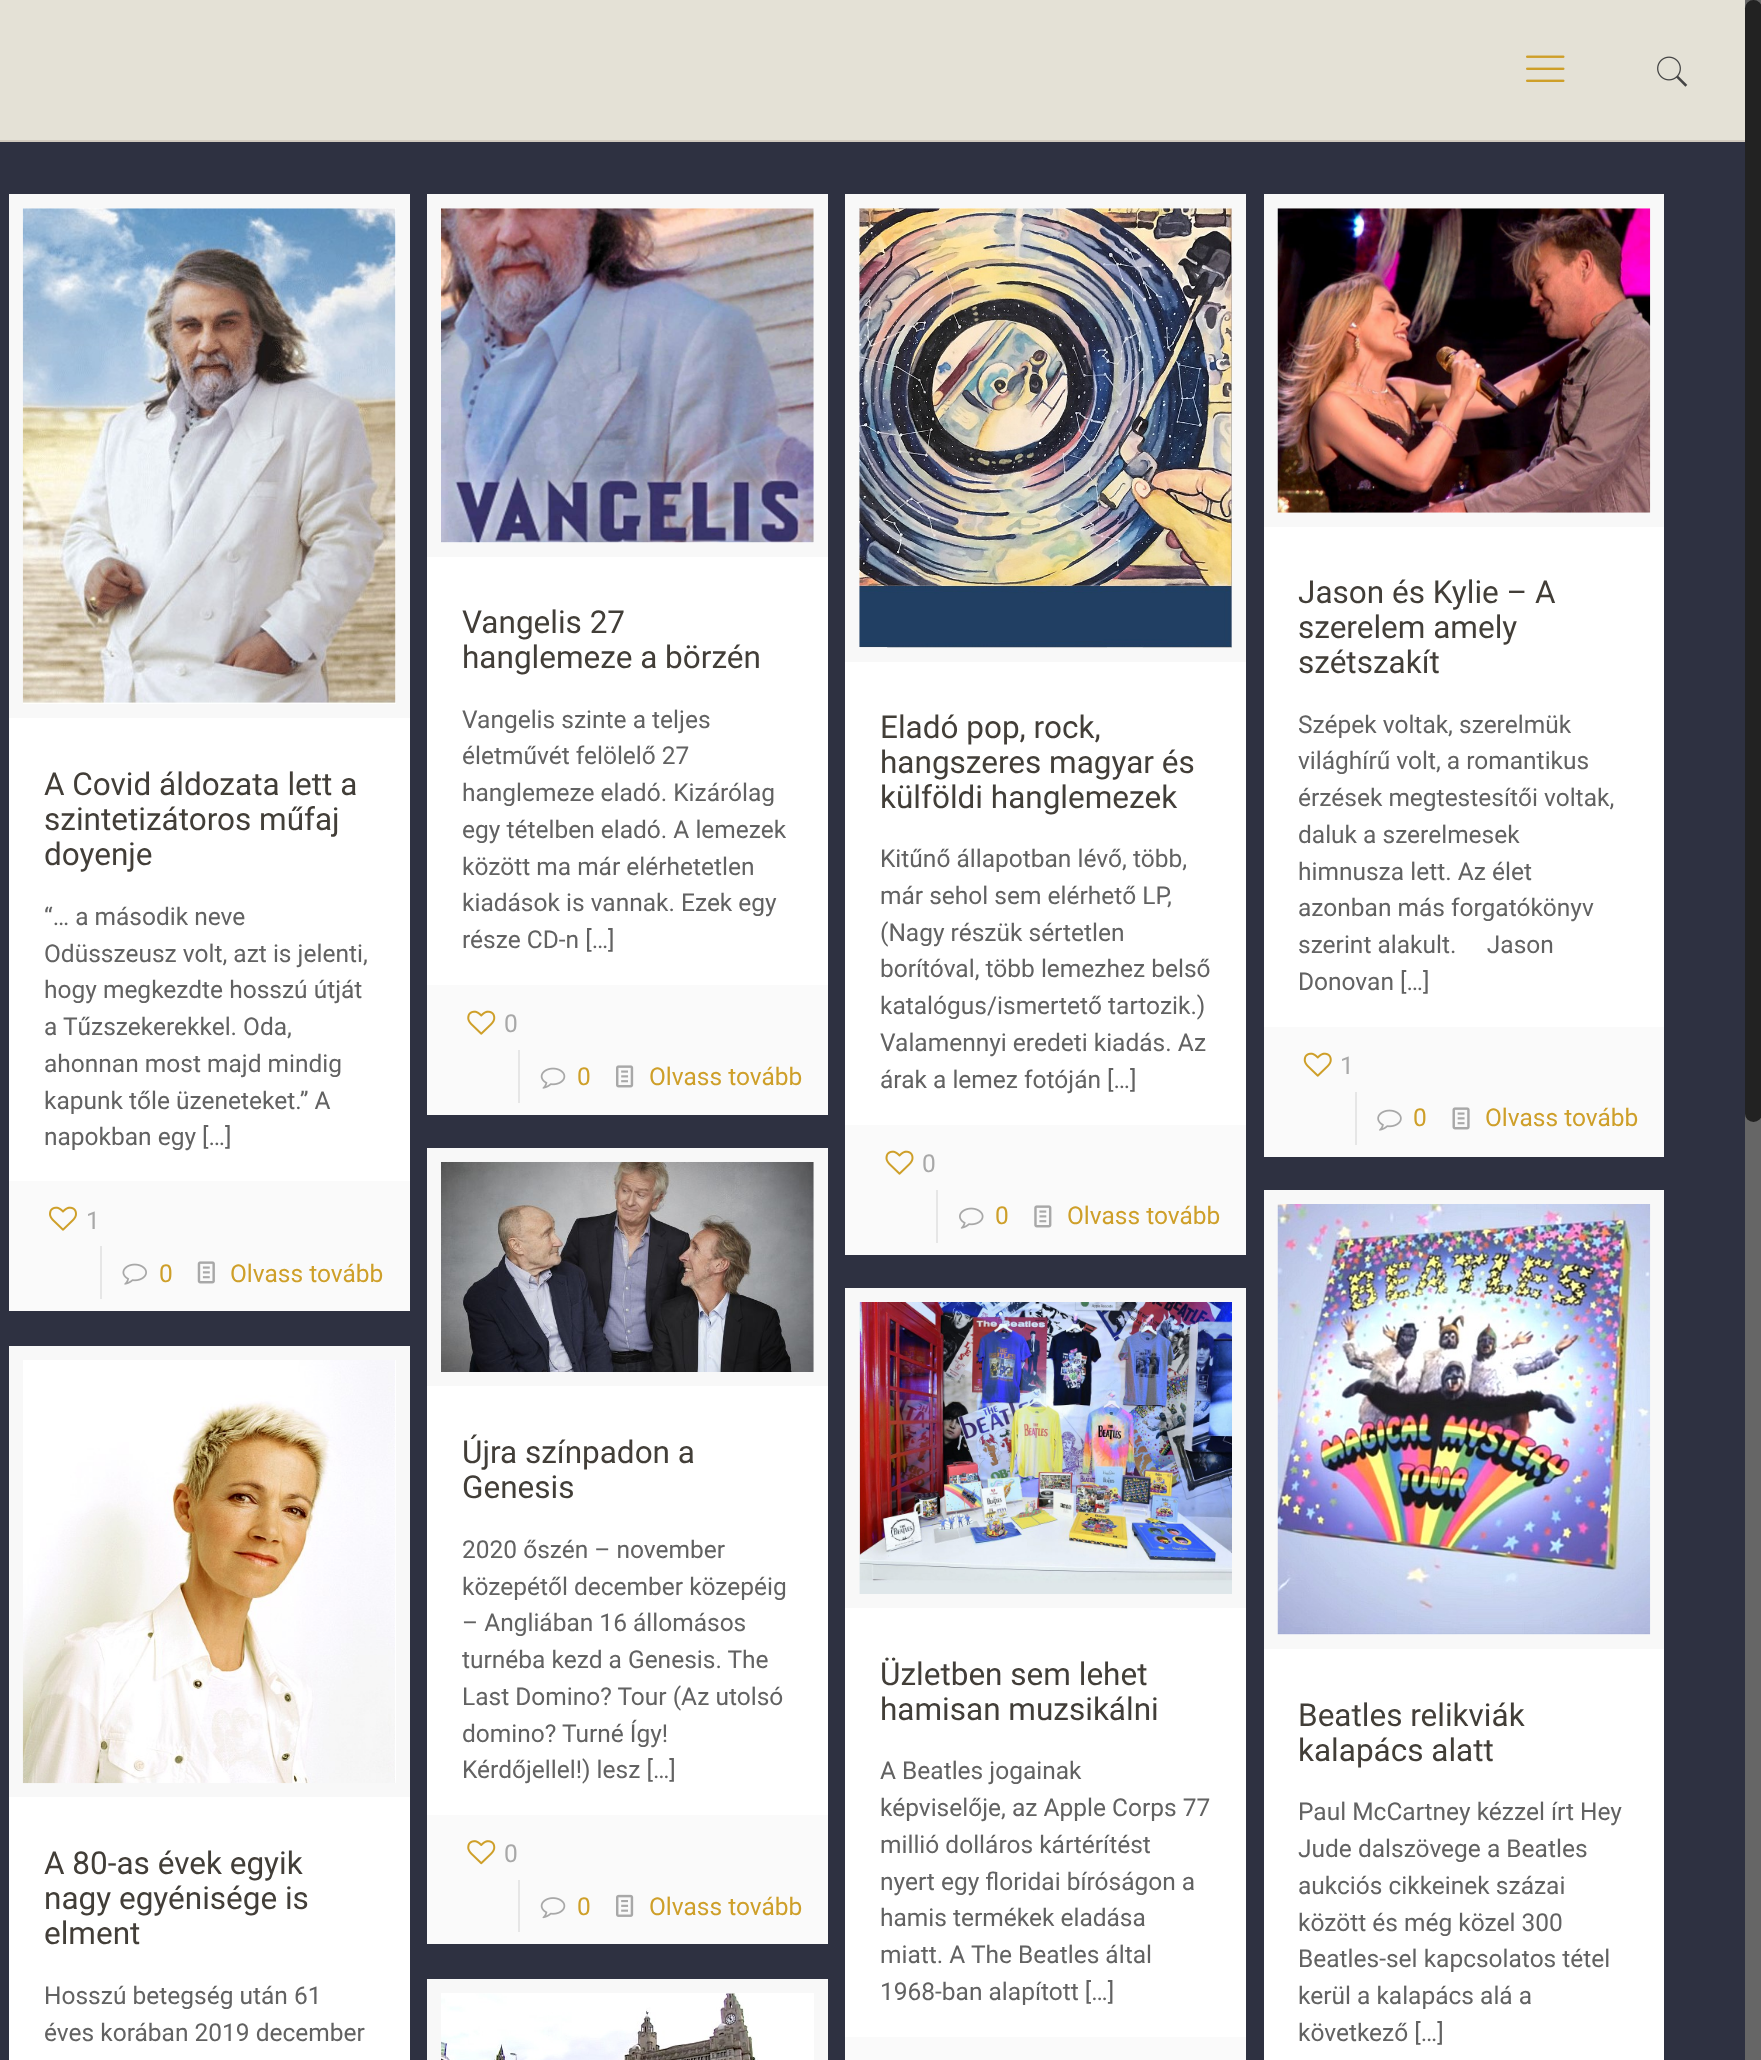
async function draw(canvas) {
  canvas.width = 1761;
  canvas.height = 2060;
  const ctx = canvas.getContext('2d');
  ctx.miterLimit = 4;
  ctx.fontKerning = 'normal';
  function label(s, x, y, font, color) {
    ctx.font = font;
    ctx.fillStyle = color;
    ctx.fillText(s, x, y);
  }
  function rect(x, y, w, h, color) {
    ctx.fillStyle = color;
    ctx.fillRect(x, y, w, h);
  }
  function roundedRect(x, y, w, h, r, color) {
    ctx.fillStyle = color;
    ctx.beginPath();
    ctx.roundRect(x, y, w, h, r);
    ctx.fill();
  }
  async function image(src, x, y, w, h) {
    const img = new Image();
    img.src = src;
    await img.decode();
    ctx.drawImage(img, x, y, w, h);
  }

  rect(0, 0, 1761, 2060, '#2e3141');
  rect(0, 0, 1745, 140, '#e4e1d6');
  rect(0, 140, 1745, 2, '#d0c9be');
  await image('assets/img1.png', 1526, 55, 39, 27);
  await image('assets/img2.png', 1657, 56, 31, 31);
  rect(9, 208, 401, 973, '#fff');
  ctx.strokeStyle = '#f8f8f8';
  ctx.lineWidth = 14;
  ctx.strokeRect(16, 201, 387, 510);
  await image('assets/img3.png', 22, 208, 374, 496);
  label('A Covid áldozata lett a', 44, 795, '31.5px Roboto', '#423e38');
  label('szintetizátoros műfaj', 44, 830, '31.5px Roboto', '#423e38');
  label('doyenje', 44, 865, '31.5px Roboto', '#423e38');
  label('“… a második neve', 44, 925, '24.5px Roboto', '#626262');
  label('Odüsszeusz volt, azt is jelenti,', 44, 962, '24.5px Roboto', '#626262');
  label('hogy megkezdte hosszú útját', 44, 998, '24.5px Roboto', '#626262');
  label('a Tűzszekerekkel. Oda,', 44, 1035, '24.5px Roboto', '#626262');
  label('ahonnan most majd mindig', 44, 1072, '24.5px Roboto', '#626262');
  label('kapunk tőle üzeneteket.” A', 44, 1109, '24.5px Roboto', '#626262');
  label('napokban egy […]', 44, 1145, '24.5px Roboto', '#626262');
  rect(9, 1181, 401, 130, '#fafafa');
  await image('assets/img4.png', 49, 1206, 28, 25);
  label('1', 86, 1229, '24.5px Roboto', '#a8a8a8');
  rect(100, 1246, 2, 53, '#e6e6e6');
  await image('assets/img5.png', 122, 1263, 25, 22);
  label('0', 159, 1282, '24.5px Roboto', '#ce9f29');
  await image('assets/img6.png', 197, 1261, 18, 23);
  label('Olvass tovább', 230, 1282, '24.5px Roboto', '#ce9f29');
  rect(427, 208, 401, 777, '#fff');
  ctx.strokeRect(434, 201, 387, 349);
  await image('assets/img7.png', 441, 208, 373, 335);
  label('Vangelis 27', 462, 633, '31.5px Roboto', '#423e38');
  label('hanglemeze a börzén', 462, 668, '31.5px Roboto', '#423e38');
  label('Vangelis szinte a teljes', 462, 728, '24.5px Roboto', '#626262');
  label('életművét felölelő 27', 462, 764, '24.5px Roboto', '#626262');
  label('hanglemeze eladó. Kizárólag', 462, 801, '24.5px Roboto', '#626262');
  label('egy tételben eladó. A lemezek', 462, 838, '24.5px Roboto', '#626262');
  label('között ma már elérhetetlen', 462, 875, '24.5px Roboto', '#626262');
  label('kiadások is vannak. Ezek egy', 462, 911, '24.5px Roboto', '#626262');
  label('része CD-n […]', 462, 948, '24.5px Roboto', '#626262');
  rect(427, 985, 401, 130, '#fafafa');
  await image('assets/img8.png', 467, 1010, 29, 25);
  label('0', 504, 1032, '24.5px Roboto', '#a8a8a8');
  rect(518, 1050, 2, 53, '#e6e6e6');
  await image('assets/img9.png', 540, 1067, 26, 22);
  label('0', 577, 1085, '24.5px Roboto', '#ce9f29');
  await image('assets/img10.png', 616, 1065, 18, 23);
  label('Olvass tovább', 649, 1085, '24.5px Roboto', '#ce9f29');
  rect(845, 208, 401, 917, '#fff');
  ctx.strokeRect(852, 201, 387, 454);
  await image('assets/img11.png', 859, 208, 373, 440);
  label('Eladó pop, rock,', 880, 738, '31.5px Roboto', '#423e38');
  label('hangszeres magyar és', 880, 773, '31.5px Roboto', '#423e38');
  label('külföldi hanglemezek', 880, 808, '31.5px Roboto', '#423e38');
  label('Kitűnő állapotban lévő, több,', 880, 867, '24.5px Roboto', '#626262');
  label('már sehol sem elérhető LP,', 880, 904, '24.5px Roboto', '#626262');
  label('(Nagy részük sértetlen', 880, 941, '24.5px Roboto', '#626262');
  label('borítóval, több lemezhez belső', 880, 977, '24.5px Roboto', '#626262');
  label('katalógus/ismertető tartozik.)', 880, 1014, '24.5px Roboto', '#626262');
  label('Valamennyi eredeti kiadás. Az', 880, 1051, '24.5px Roboto', '#626262');
  label('árak a lemez fotóján […]', 880, 1088, '24.5px Roboto', '#626262');
  rect(845, 1125, 401, 130, '#fafafa');
  await image('assets/img12.png', 885, 1150, 29, 25);
  label('0', 922, 1172, '24.5px Roboto', '#a8a8a8');
  rect(936, 1190, 2, 53, '#e6e6e6');
  await image('assets/img13.png', 959, 1207, 25, 22);
  label('0', 995, 1224, '24.5px Roboto', '#ce9f29');
  await image('assets/img14.png', 1034, 1205, 18, 23);
  label('Olvass tovább', 1067, 1224, '24.5px Roboto', '#ce9f29');
  rect(1264, 208, 400, 819, '#fff');
  ctx.strokeRect(1271, 201, 386, 319);
  await image('assets/img15.png', 1277, 208, 374, 305);
  label('Jason és Kylie – A', 1298, 603, '31.5px Roboto', '#423e38');
  label('szerelem amely', 1298, 638, '31.5px Roboto', '#423e38');
  label('szétszakít', 1298, 673, '31.5px Roboto', '#423e38');
  label('Szépek voltak, szerelmük', 1298, 733, '24.5px Roboto', '#626262');
  label('világhírű volt, a romantikus', 1298, 769, '24.5px Roboto', '#626262');
  label('érzések megtestesítői voltak,', 1298, 806, '24.5px Roboto', '#626262');
  label('daluk a szerelmesek', 1298, 843, '24.5px Roboto', '#626262');
  label('himnusza lett. Az élet', 1298, 880, '24.5px Roboto', '#626262');
  label('azonban más forgatókönyv', 1298, 916, '24.5px Roboto', '#626262');
  label('szerint alakult.     Jason', 1298, 953, '24.5px Roboto', '#626262');
  label('Donovan […]', 1298, 990, '24.5px Roboto', '#626262');
  rect(1264, 1027, 400, 130, '#fafafa');
  await image('assets/img16.png', 1303, 1052, 29, 25);
  label('1', 1340, 1074, '24.5px Roboto', '#a8a8a8');
  rect(1355, 1092, 2, 53, '#e6e6e6');
  await image('assets/img17.png', 1377, 1109, 25, 22);
  label('0', 1413, 1126, '24.5px Roboto', '#ce9f29');
  await image('assets/img18.png', 1452, 1107, 18, 23);
  label('Olvass tovább', 1485, 1126, '24.5px Roboto', '#ce9f29');
  rect(9, 1360, 401, 700, '#fff');
  ctx.strokeRect(16, 1353, 387, 437);
  await image('assets/img19.png', 22, 1360, 373, 424);
  label('A 80-as évek egyik', 44, 1874, '31.5px Roboto', '#423e38');
  label('nagy egyénisége is', 44, 1909, '31.5px Roboto', '#423e38');
  label('elment', 44, 1944, '31.5px Roboto', '#423e38');
  label('Hosszú betegség után 61', 44, 2004, '24.5px Roboto', '#626262');
  label('éves korában 2019 december', 44, 2041, '24.5px Roboto', '#626262');
  rect(427, 1162, 401, 653, '#fff');
  ctx.strokeRect(434, 1155, 387, 224);
  await image('assets/img20.png', 441, 1162, 373, 210);
  label('Újra színpadon a', 462, 1463, '31.5px Roboto', '#423e38');
  label('Genesis', 462, 1498, '31.5px Roboto', '#423e38');
  label('2020 őszén – november', 462, 1558, '24.5px Roboto', '#626262');
  label('közepétől december közepéig', 462, 1595, '24.5px Roboto', '#626262');
  label('– Angliában 16 állomásos', 462, 1631, '24.5px Roboto', '#626262');
  label('turnéba kezd a Genesis. The', 462, 1668, '24.5px Roboto', '#626262');
  label('Last Domino? Tour (Az utolsó', 462, 1705, '24.5px Roboto', '#626262');
  label('domino? Turné Így!', 462, 1742, '24.5px Roboto', '#626262');
  label('Kérdőjellel!) lesz […]', 462, 1778, '24.5px Roboto', '#626262');
  rect(427, 1815, 401, 129, '#fafafa');
  await image('assets/img21.png', 467, 1840, 29, 25);
  label('0', 504, 1862, '24.5px Roboto', '#a8a8a8');
  rect(518, 1880, 2, 52, '#e6e6e6');
  await image('assets/img22.png', 540, 1897, 26, 22);
  label('0', 577, 1915, '24.5px Roboto', '#ce9f29');
  await image('assets/img23.png', 616, 1894, 18, 23);
  label('Olvass tovább', 649, 1915, '24.5px Roboto', '#ce9f29');
  rect(845, 1302, 401, 735, '#fff');
  ctx.strokeRect(852, 1295, 387, 306);
  await image('assets/img24.png', 859, 1302, 373, 292);
  label('Üzletben sem lehet', 880, 1685, '31.5px Roboto', '#423e38');
  label('hamisan muzsikálni', 880, 1720, '31.5px Roboto', '#423e38');
  label('A Beatles jogainak', 880, 1779, '24.5px Roboto', '#626262');
  label('képviselője, az Apple Corps 77', 880, 1816, '24.5px Roboto', '#626262');
  label('millió dolláros kártérítést', 880, 1853, '24.5px Roboto', '#626262');
  label('nyert egy floridai bíróságon a', 880, 1890, '24.5px Roboto', '#626262');
  label('hamis termékek eladása', 880, 1926, '24.5px Roboto', '#626262');
  label('miatt. A The Beatles által', 880, 1963, '24.5px Roboto', '#626262');
  label('1968-ban alapított […]', 880, 2000, '24.5px Roboto', '#626262');
  rect(845, 2037, 401, 23, '#fafafa');
  rect(1264, 1634, 400, 426, '#fff');
  ctx.strokeRect(1271, 1197, 386, 445);
  await image('assets/img25.png', 1277, 1204, 374, 431);
  label('Beatles relikviák', 1298, 1726, '31.5px Roboto', '#423e38');
  label('kalapács alatt', 1298, 1761, '31.5px Roboto', '#423e38');
  label('Paul McCartney kézzel írt Hey', 1298, 1820, '24.5px Roboto', '#626262');
  label('Jude dalszövege a Beatles', 1298, 1857, '24.5px Roboto', '#626262');
  label('aukciós cikkeinek százai', 1298, 1894, '24.5px Roboto', '#626262');
  label('között és még közel 300', 1298, 1931, '24.5px Roboto', '#626262');
  label('Beatles-sel kapcsolatos tétel', 1298, 1967, '24.5px Roboto', '#626262');
  label('kerül a kalapács alá a', 1298, 2004, '24.5px Roboto', '#626262');
  label('következő […]', 1298, 2041, '24.5px Roboto', '#626262');
  ctx.fillStyle = '#fff';
  ctx.beginPath();
  ctx.rect(434, 1986, 387, 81);
  ctx.fill();
  ctx.stroke();
  await image('assets/img26.png', 441, 1993, 317, 67);
  rect(1745, 0, 16, 2060, '#666');
  roundedRect(1745, 0, 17, 1122, 8.5, '#222');
}

draw(document.querySelector('canvas'));
